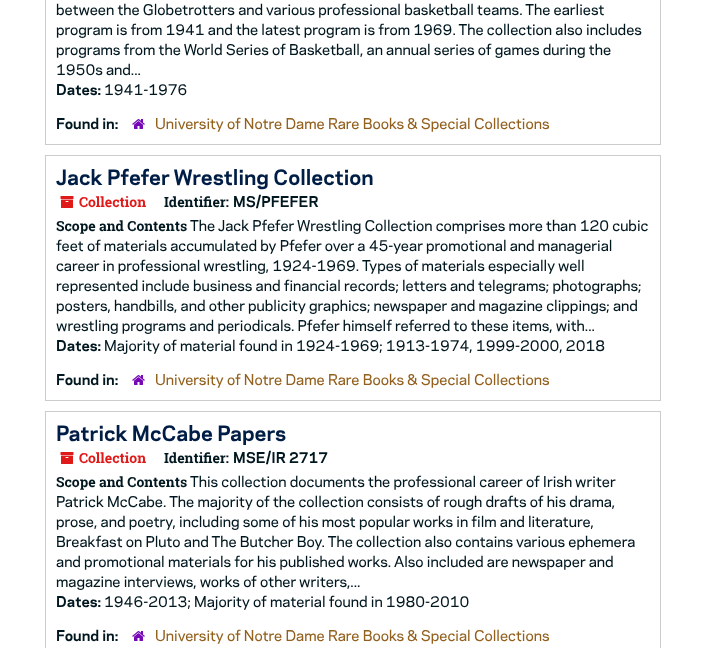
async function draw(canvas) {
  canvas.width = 706;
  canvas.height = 648;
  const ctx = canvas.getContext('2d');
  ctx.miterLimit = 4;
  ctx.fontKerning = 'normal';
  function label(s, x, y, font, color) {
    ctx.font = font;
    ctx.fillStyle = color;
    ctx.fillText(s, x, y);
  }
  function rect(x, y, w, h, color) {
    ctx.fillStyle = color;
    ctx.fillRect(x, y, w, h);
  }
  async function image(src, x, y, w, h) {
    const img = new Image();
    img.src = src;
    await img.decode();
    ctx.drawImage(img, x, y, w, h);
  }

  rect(0, 0, 706, 648, '#fff');
  ctx.strokeStyle = '#ccc';
  ctx.strokeRect(45.5, -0.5, 615, 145);
  label('between the Globetrotters and various professional basketball teams. The earliest', 56, 15, '14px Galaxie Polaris', '#00171f');
  label('program is from 1941 and the latest program is from 1969. The collection also includes', 56, 35, '14px Galaxie Polaris', '#00171f');
  label('programs from the World Series of Basketball, an annual series of games during the', 56, 55, '14px Galaxie Polaris', '#00171f');
  label('1950s and...', 56, 75, '14px Galaxie Polaris', '#00171f');
  label('Dates:', 56, 95, 'bold 14px Galaxie Polaris', '#00171f');
  label('1941-1976', 104, 95, '14px Galaxie Polaris', '#00171f');
  label('Found in:', 56, 129, 'bold 14px Galaxie Polaris', '#00171f');
  await image('assets/img1.png', 132, 119, 13, 10);
  label('University of Notre Dame Rare Books & Special Collections', 155, 129, '14px Galaxie Polaris', '#93601d');
  ctx.strokeRect(45.5, 155.5, 615, 245);
  label('Jack Pfefer Wrestling Collection', 56, 185, 'bold 20px Galaxie Polaris', '#001e45');
  await image('assets/img2.png', 60, 196, 14, 12);
  label('Collection', 79, 207, 'bold 14px Roboto Slab', '#e01919');
  label('Identifier:', 164, 207, 'bold 14px Roboto Slab', '#00171f');
  label('MS/PFEFER', 233, 207, 'bold 14px Galaxie Polaris', '#00171f');
  label('Scope and Contents', 56, 231, 'bold 14px Roboto Slab', '#00171f');
  label('The Jack Pfefer Wrestling Collection comprises more than 120 cubic', 190, 231, '14px Galaxie Polaris', '#00171f');
  label('feet of materials accumulated by Pfefer over a 45-year promotional and managerial', 56, 251, '14px Galaxie Polaris', '#00171f');
  label('career in professional wrestling, 1924-1969. Types of materials especially well', 56, 271, '14px Galaxie Polaris', '#00171f');
  label('represented include business and financial records; letters and telegrams; photographs;', 56, 291, '14px Galaxie Polaris', '#00171f');
  label('posters, handbills, and other publicity graphics; newspaper and magazine clippings; and', 56, 311, '14px Galaxie Polaris', '#00171f');
  label('wrestling programs and periodicals. Pfefer himself referred to these items, with...', 56, 331, '14px Galaxie Polaris', '#00171f');
  label('Dates:', 56, 351, 'bold 14px Galaxie Polaris', '#00171f');
  label('Majority of material found in 1924-1969; 1913-1974, 1999-2000, 2018', 104, 351, '14px Galaxie Polaris', '#00171f');
  label('Found in:', 56, 385, 'bold 14px Galaxie Polaris', '#00171f');
  await image('assets/img1.png', 132, 375, 13, 10);
  label('University of Notre Dame Rare Books & Special Collections', 155, 385, '14px Galaxie Polaris', '#93601d');
  ctx.strokeRect(45.5, 411.5, 615, 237);
  label('Patrick McCabe Papers', 56, 441, 'bold 20px Galaxie Polaris', '#001e45');
  await image('assets/img2.png', 60, 452, 14, 12);
  label('Collection', 79, 463, 'bold 14px Roboto Slab', '#e01919');
  label('Identifier:', 164, 463, 'bold 14px Roboto Slab', '#00171f');
  label('MSE/IR 2717', 233, 463, 'bold 14px Galaxie Polaris', '#00171f');
  label('Scope and Contents', 56, 487, 'bold 14px Roboto Slab', '#00171f');
  label('This collection documents the professional career of Irish writer', 190, 487, '14px Galaxie Polaris', '#00171f');
  label('Patrick McCabe. The majority of the collection consists of rough drafts of his drama,', 56, 507, '14px Galaxie Polaris', '#00171f');
  label('prose, and poetry, including some of his most popular works in film and literature,', 56, 527, '14px Galaxie Polaris', '#00171f');
  label('Breakfast on Pluto and The Butcher Boy. The collection also contains various ephemera', 56, 547, '14px Galaxie Polaris', '#00171f');
  label('and promotional materials for his published works. Also included are newspaper and', 56, 567, '14px Galaxie Polaris', '#00171f');
  label('magazine interviews, works of other writers,...', 56, 587, '14px Galaxie Polaris', '#00171f');
  label('Dates:', 56, 607, 'bold 14px Galaxie Polaris', '#00171f');
  label('1946-2013; Majority of material found in 1980-2010', 104, 607, '14px Galaxie Polaris', '#00171f');
  label('Found in:', 56, 641, 'bold 14px Galaxie Polaris', '#00171f');
  await image('assets/img1.png', 132, 631, 13, 10);
  label('University of Notre Dame Rare Books & Special Collections', 155, 641, '14px Galaxie Polaris', '#93601d');
}

draw(document.querySelector('canvas'));
